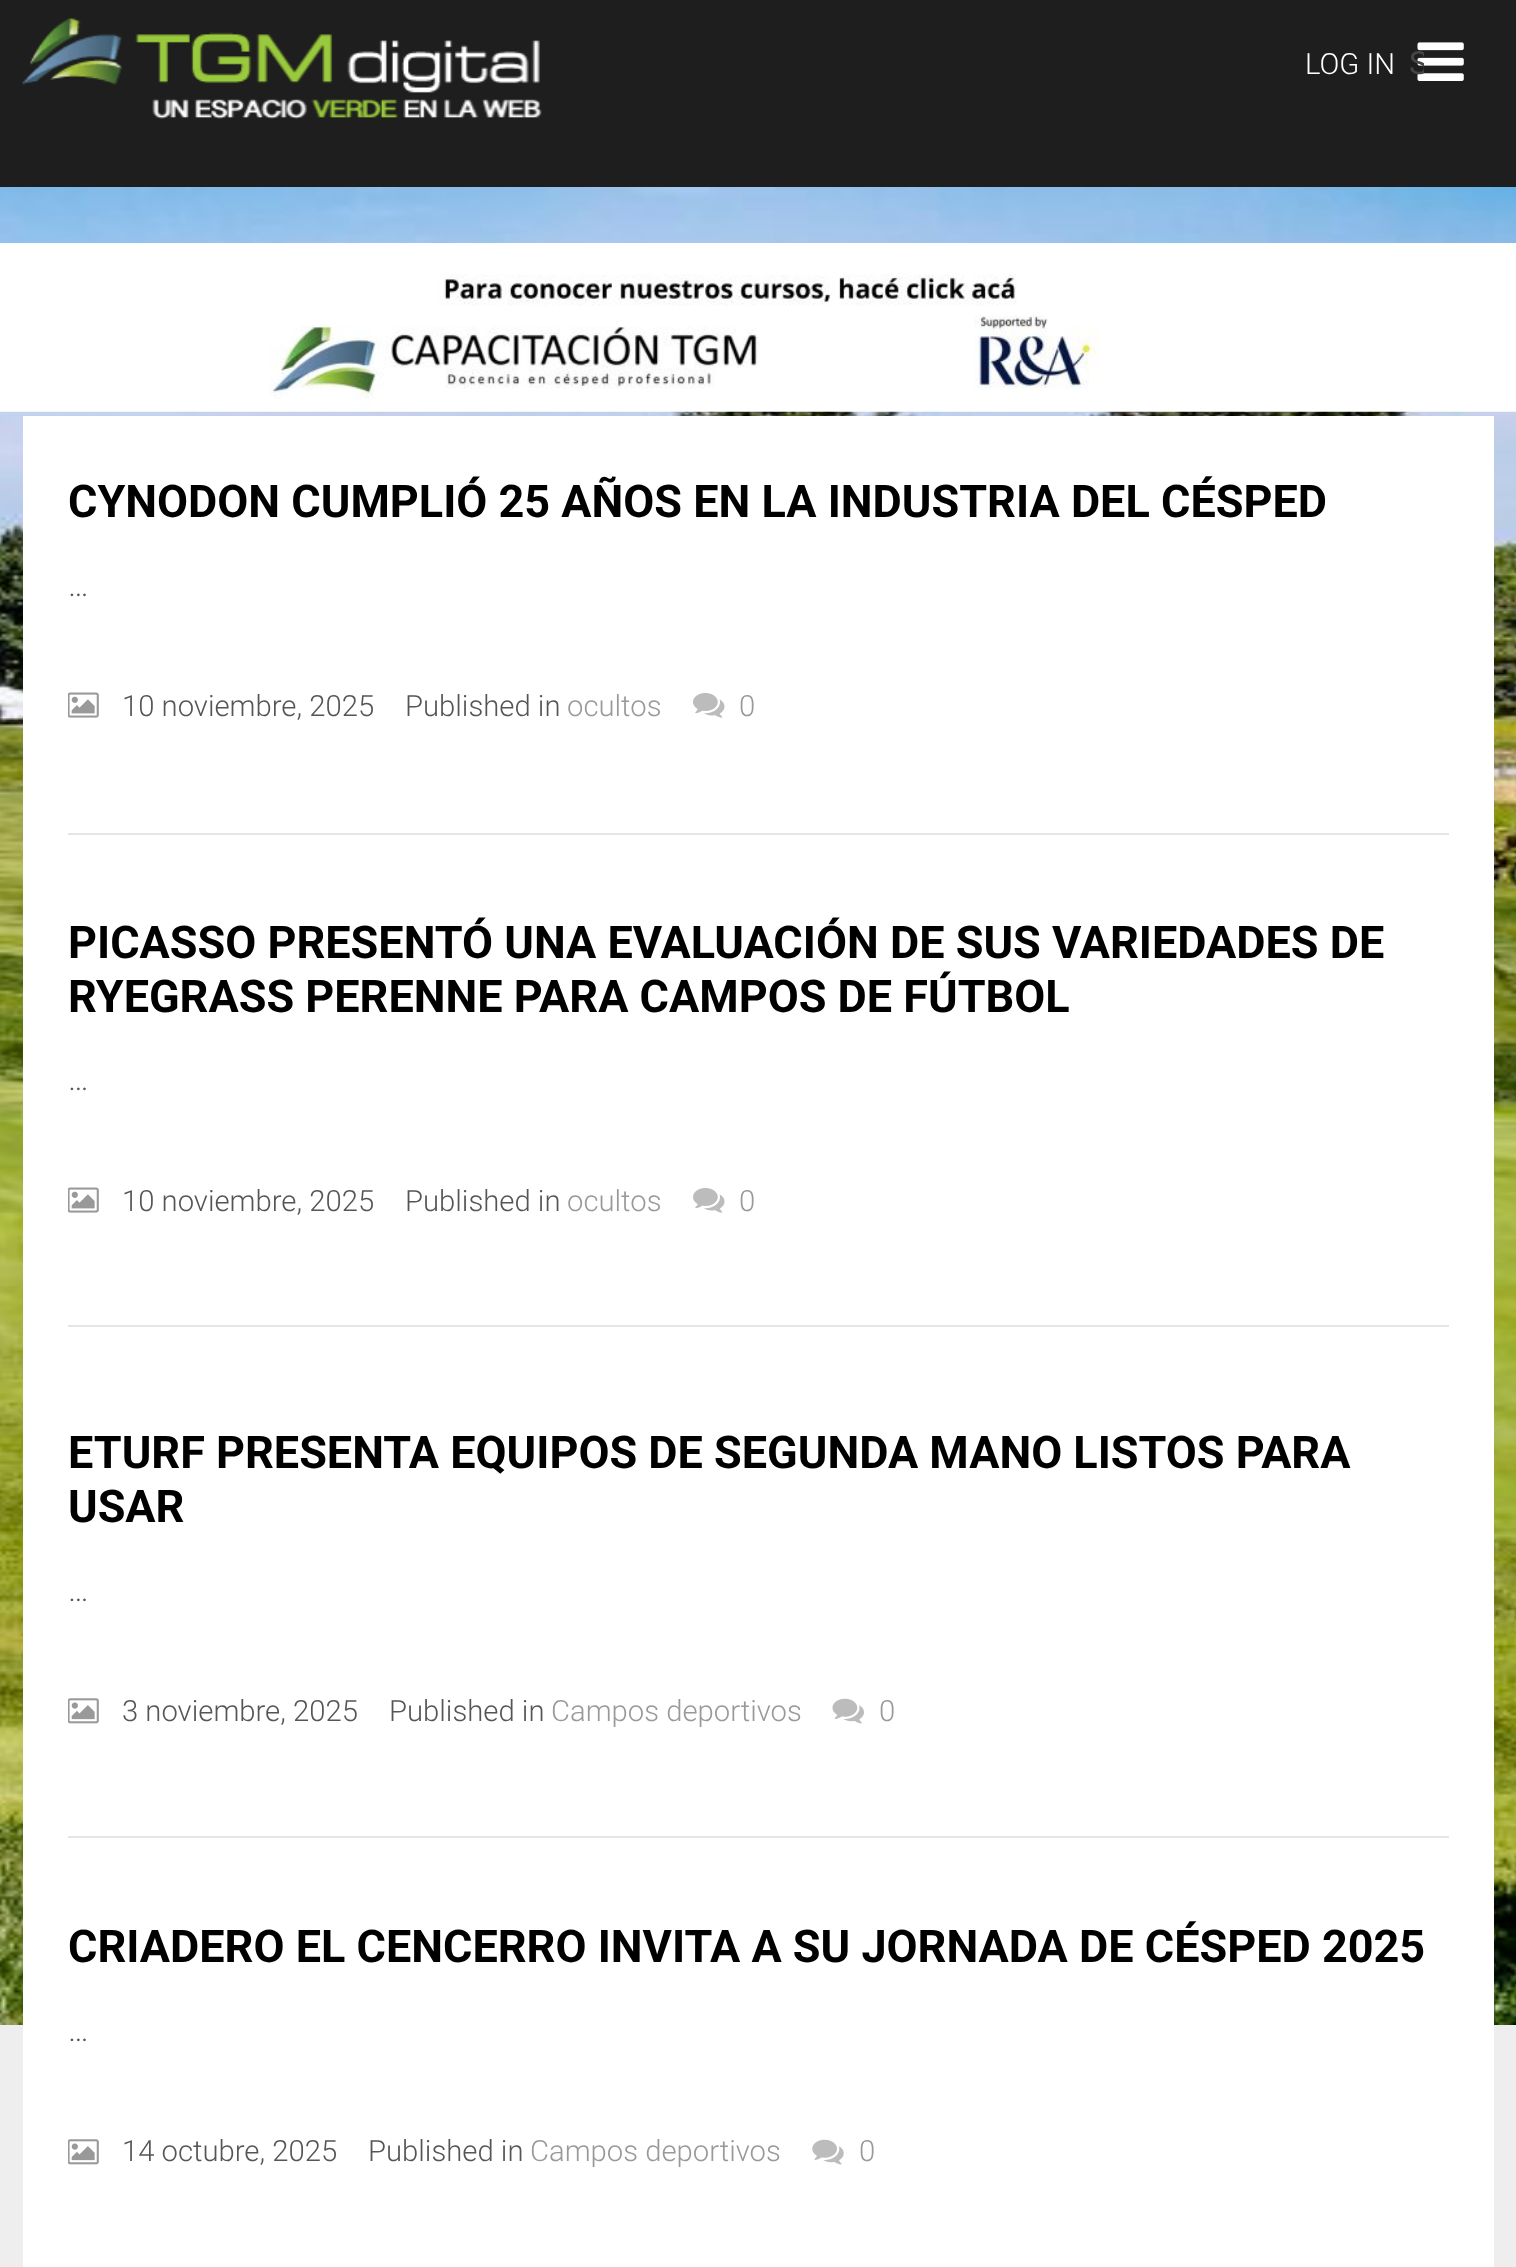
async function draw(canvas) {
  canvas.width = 1516;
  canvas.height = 2267;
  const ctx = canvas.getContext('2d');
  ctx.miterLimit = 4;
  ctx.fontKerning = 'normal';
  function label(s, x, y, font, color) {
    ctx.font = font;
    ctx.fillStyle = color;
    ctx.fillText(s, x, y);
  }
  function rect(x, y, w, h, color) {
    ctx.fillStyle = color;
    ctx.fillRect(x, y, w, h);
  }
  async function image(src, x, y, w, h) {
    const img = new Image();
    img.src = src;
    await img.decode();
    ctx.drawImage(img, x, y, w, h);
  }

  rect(0, 0, 1516, 2267, '#eee');
  rect(0, 0, 1516, 187, '#1e1e1e');
  await image('assets/img1.png', 22, 17, 520, 102);
  label('LOG IN', 1305, 74, '300 29.25px Roboto', '#fff');
  await image('assets/img2.png', 1417, 42, 47, 39);
  ctx.save();
  ctx.beginPath();
  ctx.rect(1409, 43, 15, 40);
  ctx.clip();
  label('S', 1409, 74, '32px Roboto', '#454545');
  ctx.restore();
  await image('assets/img3.png', 0, 187, 1516, 1838);
  await image('assets/img4.png', 0, 243, 1516, 169);
  rect(23, 416, 1471, 1851, '#fff');
  rect(68, 833, 1381, 2, '#e5e5e5');
  label('CYNODON CUMPLIÓ 25 AÑOS EN LA INDUSTRIA DEL CÉSPED', 68, 517, 'bold 45px Roboto', '#000');
  label('…', 68, 596, '300 32px Roboto', '#555');
  await image('assets/img5.png', 68, 692, 31, 26);
  label('10 noviembre, 2025', 122, 716, '300 29.25px Roboto', '#555');
  label('Published in', 405, 716, '300 29.25px Roboto', '#555');
  label('ocultos', 567, 716, '300 29.25px Roboto', '#999');
  await image('assets/img6.png', 693, 693, 32, 25);
  label('0', 739, 716, '300 29.25px Roboto', '#999');
  rect(68, 1325, 1381, 2, '#e5e5e5');
  label('PICASSO PRESENTÓ UNA EVALUACIÓN DE SUS VARIEDADES DE', 68, 958, 'bold 45px Roboto', '#000');
  label('RYEGRASS PERENNE PARA CAMPOS DE FÚTBOL', 68, 1012, 'bold 45px Roboto', '#000');
  label('…', 68, 1090, '300 32px Roboto', '#555');
  await image('assets/img5.png', 68, 1187, 31, 26);
  label('10 noviembre, 2025', 122, 1211, '300 29.25px Roboto', '#555');
  label('Published in', 405, 1211, '300 29.25px Roboto', '#555');
  label('ocultos', 567, 1211, '300 29.25px Roboto', '#999');
  await image('assets/img6.png', 693, 1188, 32, 25);
  label('0', 739, 1211, '300 29.25px Roboto', '#999');
  rect(68, 1836, 1381, 2, '#e5e5e5');
  label('ETURF PRESENTA EQUIPOS DE SEGUNDA MANO LISTOS PARA', 68, 1468, 'bold 45px Roboto', '#000');
  label('USAR', 68, 1522, 'bold 45px Roboto', '#000');
  label('…', 68, 1601, '300 32px Roboto', '#555');
  await image('assets/img7.png', 68, 1698, 31, 26);
  label('3 noviembre, 2025', 122, 1721, '300 29.25px Roboto', '#555');
  label('Published in', 389, 1721, '300 29.25px Roboto', '#555');
  label('Campos deportivos', 551, 1721, '300 29.25px Roboto', '#999');
  await image('assets/img8.png', 832, 1698, 32, 26);
  label('0', 879, 1721, '300 29.25px Roboto', '#999');
  label('CRIADERO EL CENCERRO INVITA A SU JORNADA DE CÉSPED 2025', 68, 1962, 'bold 45px Roboto', '#000');
  label('…', 68, 2041, '300 32px Roboto', '#555');
  await image('assets/img7.png', 68, 2139, 31, 26);
  label('14 octubre, 2025', 122, 2161, '300 29.25px Roboto', '#555');
  label('Published in', 368, 2161, '300 29.25px Roboto', '#555');
  label('Campos deportivos', 530, 2161, '300 29.25px Roboto', '#999');
  await image('assets/img9.png', 812, 2139, 32, 26);
  label('0', 859, 2161, '300 29.25px Roboto', '#999');
}

draw(document.querySelector('canvas'));
